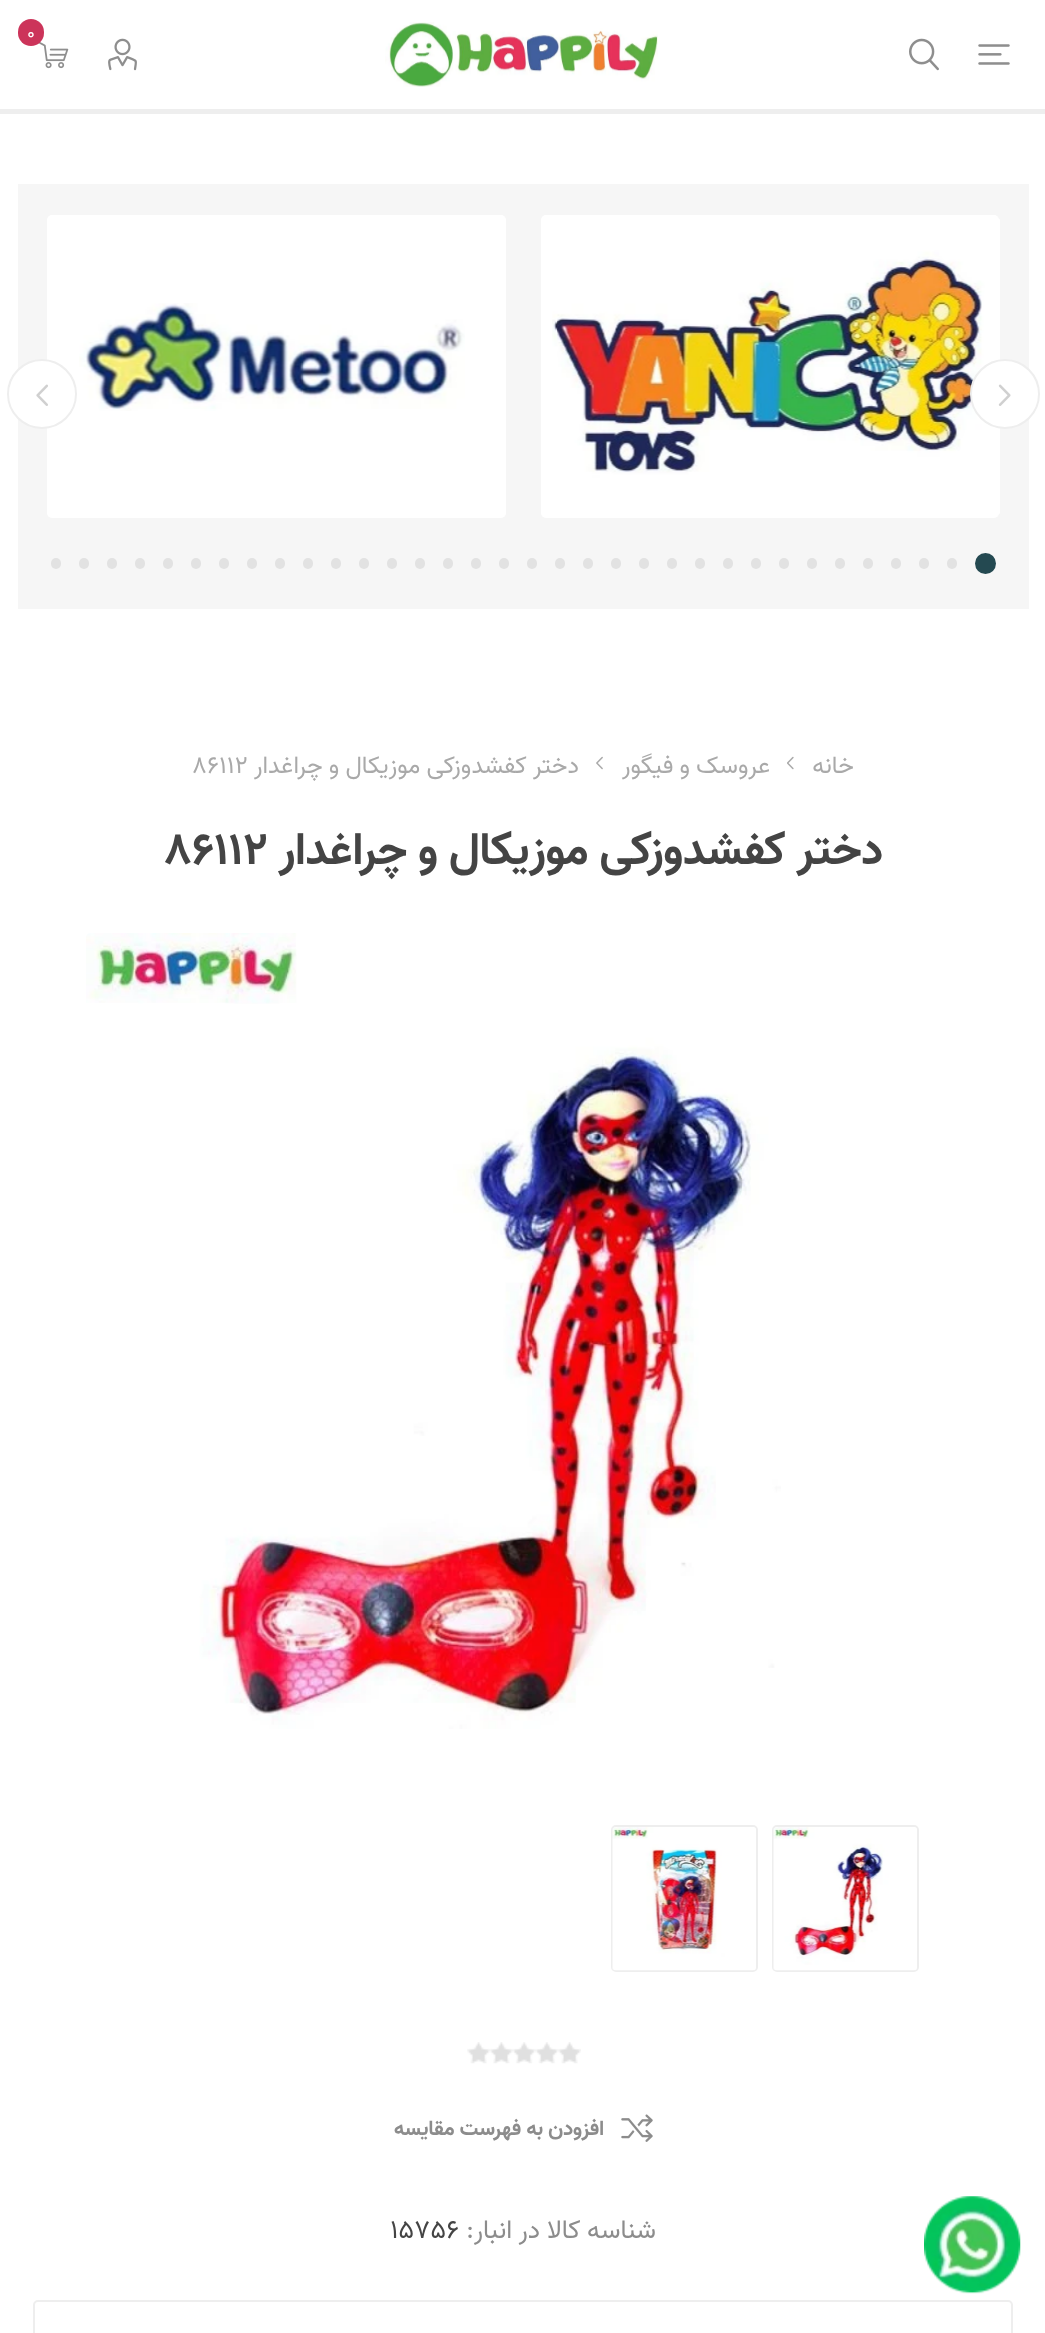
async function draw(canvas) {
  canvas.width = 1045;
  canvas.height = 2333;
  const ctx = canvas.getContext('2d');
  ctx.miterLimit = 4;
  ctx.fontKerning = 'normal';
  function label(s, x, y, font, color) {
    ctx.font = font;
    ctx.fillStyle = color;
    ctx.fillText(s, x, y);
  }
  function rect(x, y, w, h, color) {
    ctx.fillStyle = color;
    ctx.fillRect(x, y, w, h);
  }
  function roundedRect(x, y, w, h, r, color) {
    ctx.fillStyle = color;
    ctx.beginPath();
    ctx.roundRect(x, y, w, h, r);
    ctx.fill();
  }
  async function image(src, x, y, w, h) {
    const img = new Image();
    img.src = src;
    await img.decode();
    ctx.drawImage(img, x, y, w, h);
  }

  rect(0, 0, 1045, 2333, '#fff');
  await image('assets/img1.png', 924, 2196, 97, 98);
  rect(0, 109, 1045, 5, '#eee');
  await image('assets/img2.png', 385, 22, 273, 65);
  await image('assets/img3.png', 38, 42, 31, 27);
  roundedRect(18, 19, 26, 27, 13, '#cc345a');
  label('0', 27, 39, '18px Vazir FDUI', '#fff');
  await image('assets/img4.png', 978, 44, 32, 21);
  await image('assets/img5.png', 909, 38, 30, 33);
  await image('assets/img6.png', 108, 38, 29, 33);
  rect(18, 184, 1011, 425, '#f6f6f6');
  roundedRect(541, 215, 458, 303, 5, '#fff');
  await image('assets/img8.png', 552, 219, 448, 295);
  ctx.beginPath();
  ctx.arc(1005, 394, 34, 0, 2 * Math.PI);
  ctx.fill();
  ctx.strokeStyle = '#eee';
  ctx.lineWidth = 2;
  ctx.stroke();
  await image('assets/img7.png', 998, 384, 13, 22);
  roundedRect(47, 215, 459, 303, 5, '#fff');
  await image('assets/img9.png', 79, 303, 386, 108);
  ctx.beginPath();
  ctx.arc(42, 394, 34, 0, 2 * Math.PI);
  ctx.fill();
  ctx.stroke();
  await image('assets/img10.png', 36, 384, 12, 22);
  ctx.fillStyle = '#244951';
  ctx.beginPath();
  ctx.arc(985.5, 563.5, 10.5, 0, 2 * Math.PI);
  ctx.fill();
  roundedRect(947, 558, 10, 11, 5, '#e2e2e2');
  roundedRect(919, 558, 10, 11, 5, '#e2e2e2');
  roundedRect(891, 558, 10, 11, 5, '#e2e2e2');
  roundedRect(863, 558, 10, 11, 5, '#e2e2e2');
  roundedRect(835, 558, 10, 11, 5, '#e2e2e2');
  roundedRect(807, 558, 10, 11, 5, '#e2e2e2');
  roundedRect(779, 558, 10, 11, 5, '#e2e2e2');
  roundedRect(751, 558, 10, 11, 5, '#e2e2e2');
  roundedRect(723, 558, 10, 11, 5, '#e2e2e2');
  roundedRect(695, 558, 10, 11, 5, '#e2e2e2');
  roundedRect(667, 558, 10, 11, 5, '#e2e2e2');
  roundedRect(639, 558, 10, 11, 5, '#e2e2e2');
  roundedRect(611, 558, 10, 11, 5, '#e2e2e2');
  roundedRect(583, 558, 10, 11, 5, '#e2e2e2');
  roundedRect(555, 558, 10, 11, 5, '#e2e2e2');
  roundedRect(527, 558, 10, 11, 5, '#e2e2e2');
  roundedRect(499, 558, 10, 11, 5, '#e2e2e2');
  roundedRect(471, 558, 10, 11, 5, '#e2e2e2');
  roundedRect(443, 558, 10, 11, 5, '#e2e2e2');
  roundedRect(415, 558, 10, 11, 5, '#e2e2e2');
  roundedRect(387, 558, 10, 11, 5, '#e2e2e2');
  roundedRect(359, 558, 10, 11, 5, '#e2e2e2');
  roundedRect(331, 558, 10, 11, 5, '#e2e2e2');
  roundedRect(303, 558, 10, 11, 5, '#e2e2e2');
  roundedRect(275, 558, 10, 11, 5, '#e2e2e2');
  roundedRect(247, 558, 10, 11, 5, '#e2e2e2');
  roundedRect(219, 558, 10, 11, 5, '#e2e2e2');
  roundedRect(191, 558, 10, 11, 5, '#e2e2e2');
  roundedRect(163, 558, 10, 11, 5, '#e2e2e2');
  roundedRect(135, 558, 10, 11, 5, '#e2e2e2');
  roundedRect(107, 558, 10, 11, 5, '#e2e2e2');
  roundedRect(79, 558, 10, 11, 5, '#e2e2e2');
  roundedRect(51, 558, 10, 11, 5, '#e2e2e2');
  ctx.direction = 'rtl';
  label('خانه', 854, 773, '24.5px Vazir FDUI', '#a9a9a9');
  await image('assets/img11.png', 787, 756, 7, 14);
  label('عروسک و فیگور', 770, 773, '24.5px Vazir FDUI', '#a9a9a9');
  await image('assets/img12.png', 596, 756, 7, 14);
  label('دختر کفشدوزکی موزیکال و چراغدار', 579, 773, '24.5px Vazir FDUI', '#a9a9a9');
  ctx.direction = 'ltr';
  label('86112', 192, 773, '24.5px Vazir FDUI', '#a9a9a9');
  ctx.direction = 'rtl';
  label('دختر کفشدوزکی موزیکال و چراغدار', 883, 864, 'bold 45.5px Vazir FDUI', '#444');
  ctx.direction = 'ltr';
  label('86112', 164, 864, 'bold 45.5px Vazir FDUI', '#444');
  await image('assets/img13.png', 86, 933, 695, 796);
  ctx.beginPath();
  ctx.roundRect(773, 1826, 145, 145, 4);
  ctx.stroke();
  await image('assets/img14.png', 773, 1827, 144, 144);
  ctx.beginPath();
  ctx.roundRect(612, 1826, 145, 145, 4);
  ctx.stroke();
  await image('assets/img15.png', 612, 1827, 144, 144);
  await image('assets/img16.png', 467, 2042, 114, 22);
  await image('assets/img17.png', 621, 2114, 32, 28);
  ctx.direction = 'rtl';
  label('افزودن به فهرست مقایسه', 604, 2135, 'bold 21px Vazir FDUI', '#8c8c8c');
  label('شناسه کالا در انبار:', 656, 2238, '26.25px Vazir FDUI', '#8c8c8c');
  ctx.direction = 'ltr';
  label('15756', 390, 2238, '26.25px Vazir FDUI', '#444');
  ctx.beginPath();
  ctx.roundRect(34, 2301, 978, 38, 4);
  ctx.stroke();
}

draw(document.querySelector('canvas'));
